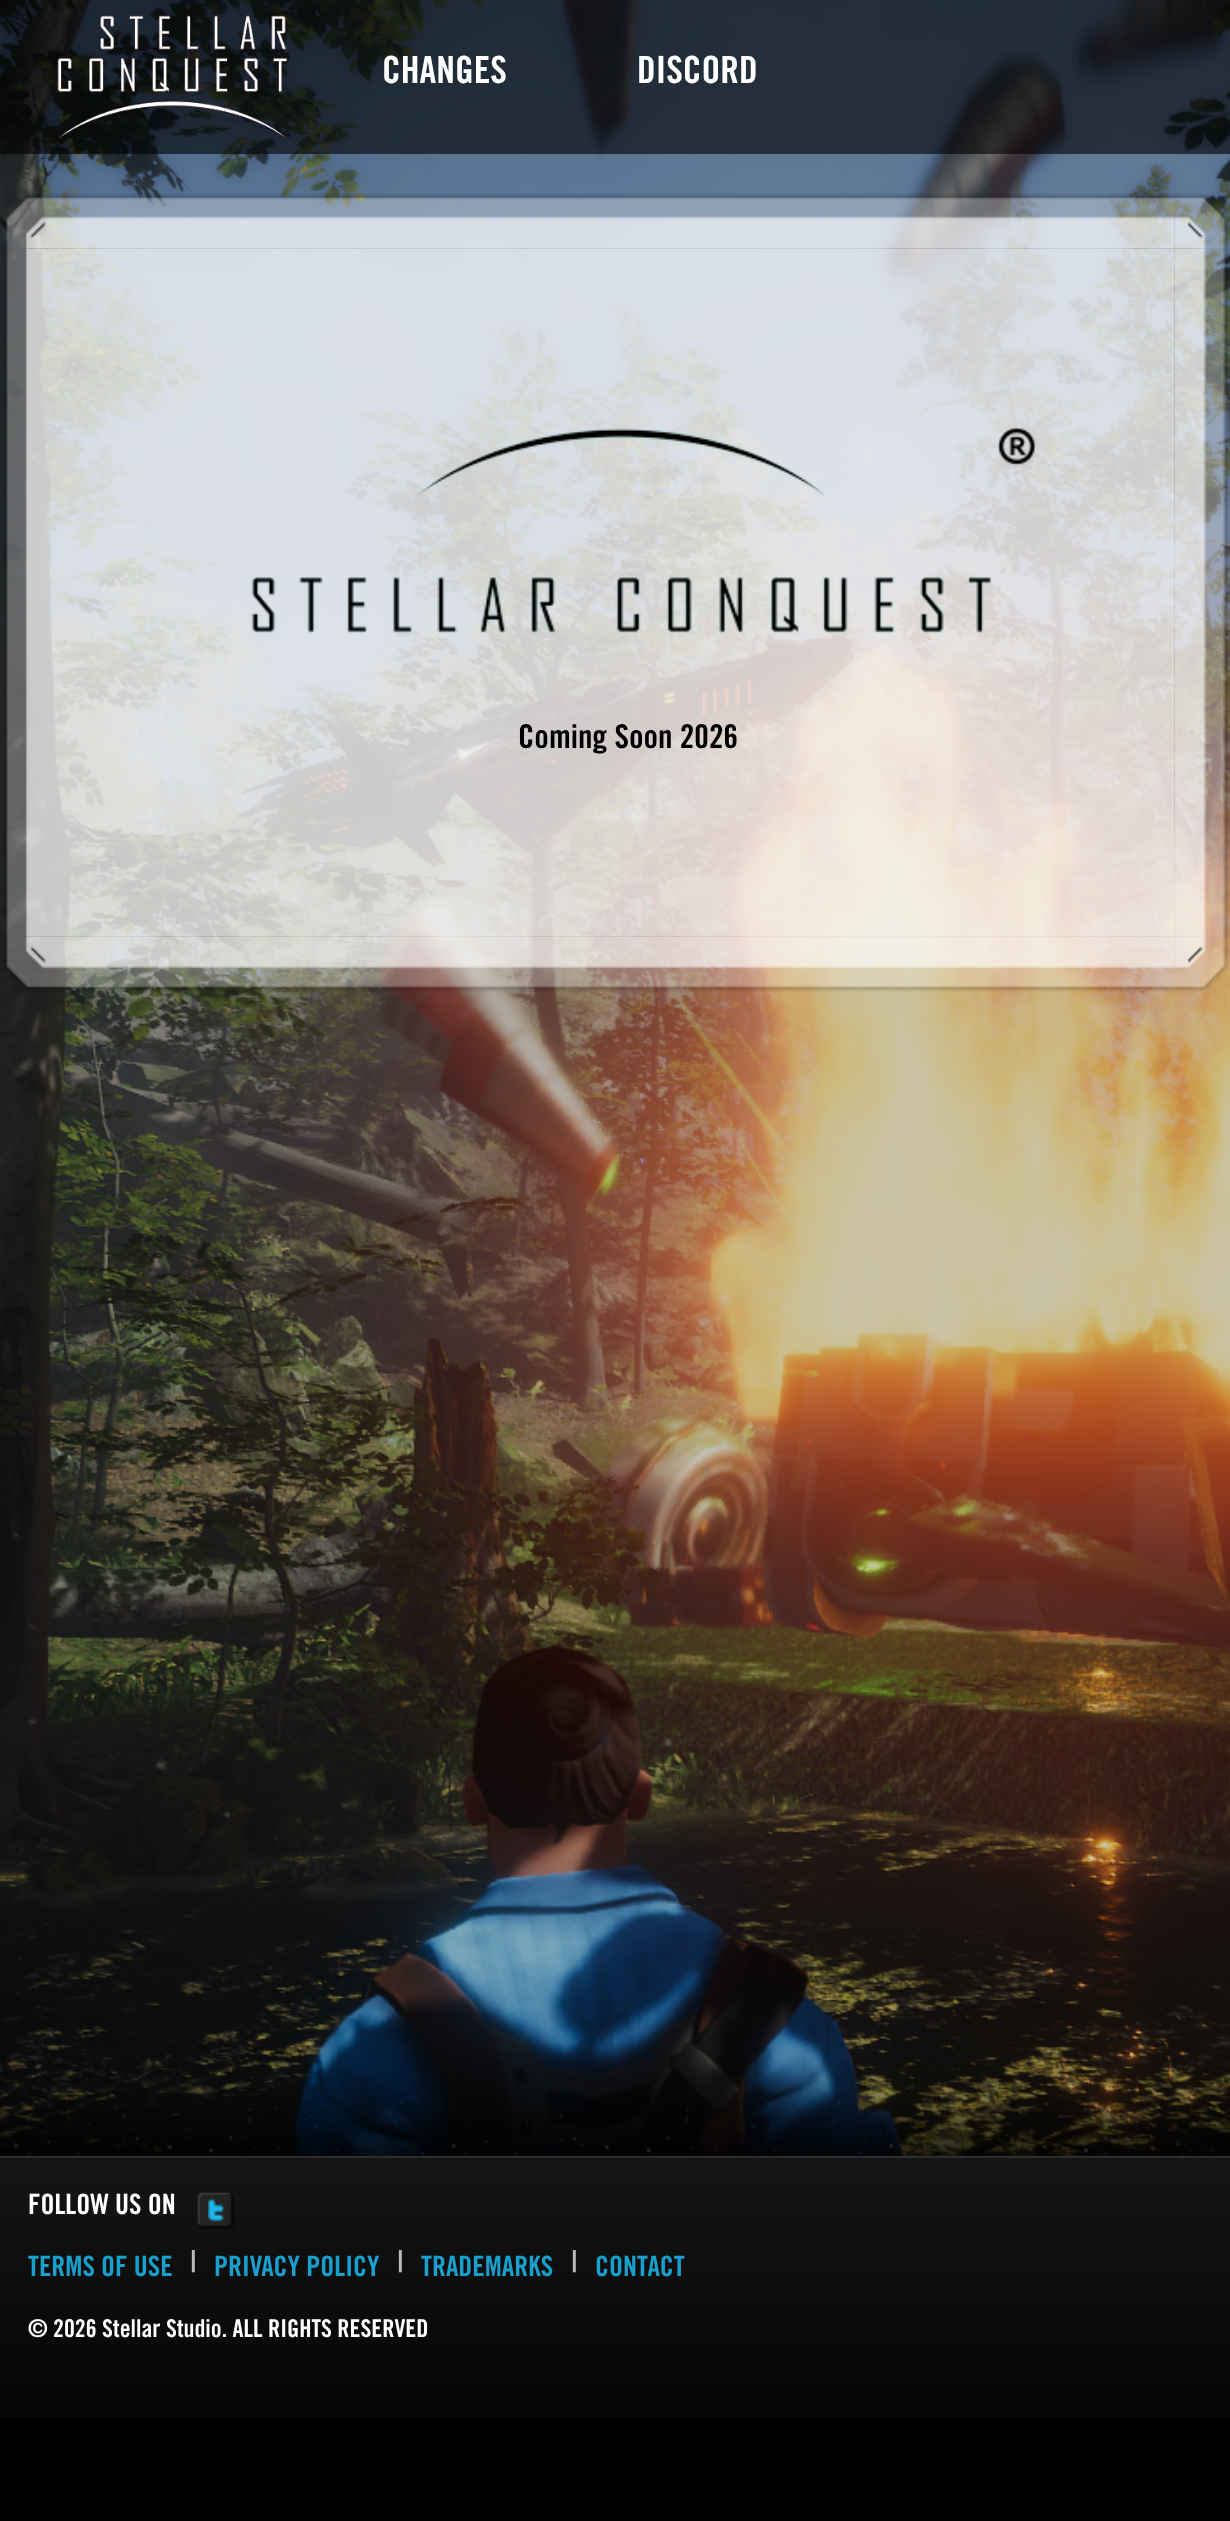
async function draw(canvas) {
  canvas.width = 1230;
  canvas.height = 2521;
  const ctx = canvas.getContext('2d');
  ctx.miterLimit = 4;
  ctx.fontKerning = 'normal';
  function label(s, x, y, font, color) {
    ctx.font = font;
    ctx.fillStyle = color;
    ctx.fillText(s, x, y);
  }
  function rect(x, y, w, h, color) {
    ctx.fillStyle = color;
    ctx.fillRect(x, y, w, h);
  }
  async function image(src, x, y, w, h) {
    const img = new Image();
    img.src = src;
    await img.decode();
    ctx.drawImage(img, x, y, w, h);
  }

  rect(0, 0, 1230, 2521, '#000');
  await image('assets/img1.png', 0, 0, 1230, 2156);
  rect(0, 0, 1230, 154, '#00000099');
  await image('assets/img2.png', 57, 15, 231, 124);
  label('CHANGES', 382, 83, 'bold 37.5px Trade Gothic', '#fff');
  label('DISCORD', 637, 83, 'bold 37.5px Trade Gothic', '#fff');
  await image('assets/img3.png', 3, 193, 1226, 799);
  await image('assets/img4.png', 251, 427, 786, 207);
  label('Coming Soon 2026', 518, 748, 'bold 32.75px Trade Gothic', '#000');
  await image('assets/img5.png', 0, 2156, 1230, 262);
  label('FOLLOW US ON', 28, 2214, 'bold 28px Trade Gothic', '#fff');
  await image('assets/img6.png', 197, 2192, 38, 37);
  label('TERMS OF USE', 28, 2276, 'bold 28px Trade Gothic', '#189fcc');
  label('|', 190, 2272, 'bold 30px Trade Gothic', '#bababa');
  label('PRIVACY POLICY', 214, 2276, 'bold 28px Trade Gothic', '#189fcc');
  label('|', 397, 2272, 'bold 30px Trade Gothic', '#bababa');
  label('TRADEMARKS', 421, 2276, 'bold 28px Trade Gothic', '#189fcc');
  label('|', 571, 2272, 'bold 30px Trade Gothic', '#bababa');
  label('CONTACT', 595, 2276, 'bold 28px Trade Gothic', '#189fcc');
  label('© 2026 Stellar Studio. ALL RIGHTS RESERVED', 28, 2337, 'bold 24.5px Trade Gothic', '#fff');
}

draw(document.querySelector('canvas'));
